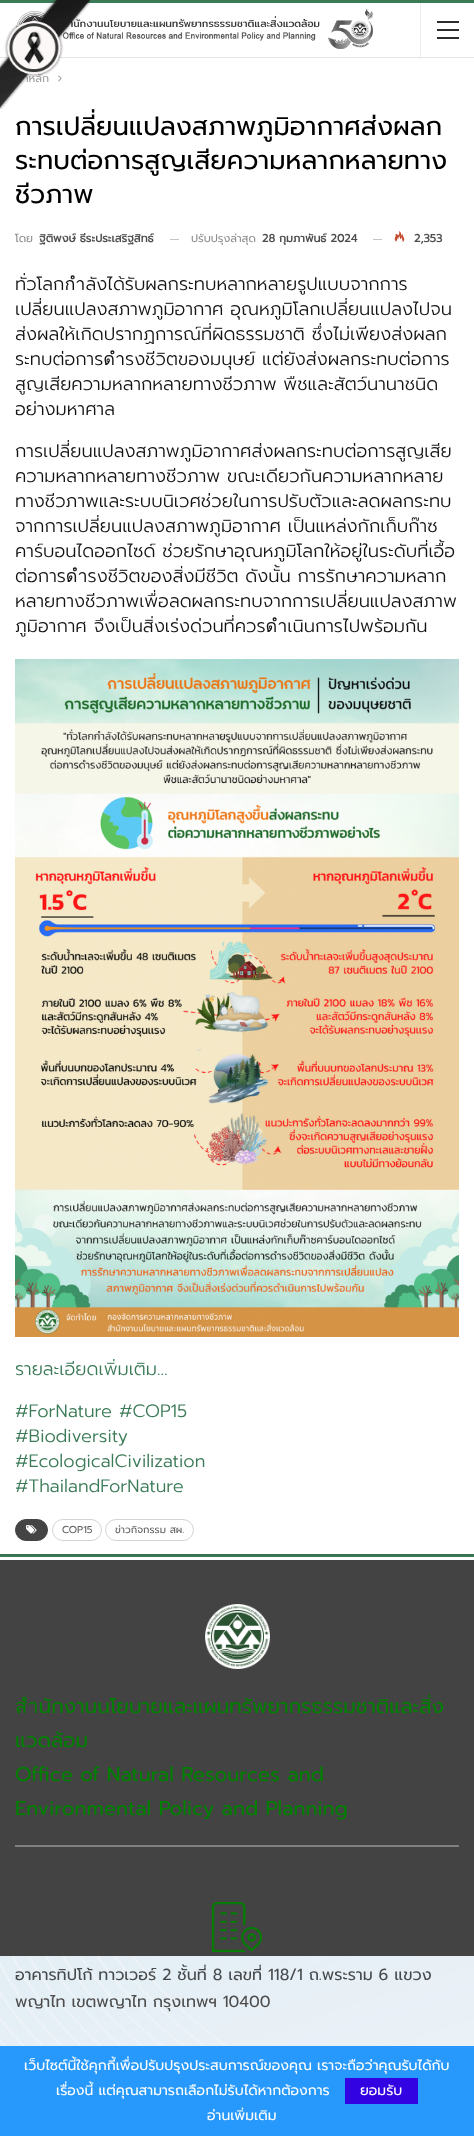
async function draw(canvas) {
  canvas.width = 474;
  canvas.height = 2136;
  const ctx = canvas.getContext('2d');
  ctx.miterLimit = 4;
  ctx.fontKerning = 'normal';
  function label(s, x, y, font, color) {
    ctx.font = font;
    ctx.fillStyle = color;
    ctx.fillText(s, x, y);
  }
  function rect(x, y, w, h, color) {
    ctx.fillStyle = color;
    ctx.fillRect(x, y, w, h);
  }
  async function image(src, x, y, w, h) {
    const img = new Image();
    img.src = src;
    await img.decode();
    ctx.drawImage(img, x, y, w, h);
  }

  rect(0, 0, 474, 2136, '#3b7a57');
  ctx.fillStyle = '#00000045';
  ctx.filter = 'blur(1px)';
  ctx.beginPath();
  ctx.rect(0, 58, 474, 1496);
  ctx.fill();
  ctx.filter = 'none';
  rect(0, 3, 474, 54, '#fff');
  rect(0, 57, 474, 1, '#e5e5e5');
  await image('assets/img2.png', 16, 9, 357, 40);
  rect(0, 58, 474, 1496, '#fff');
  label('าหลัก', 24, 82, '11px Prompt', '#9e9e9e');
  await image('assets/img3.png', 58, 75, 4, 7);
  await image('assets/img1.png', 0, 0, 90, 109);
  rect(420, 3, 1, 54, '#ededed');
  rect(437, 29, 22, 2, '#2c2c2c');
  rect(437, 21, 22, 2, '#2c2c2c');
  rect(437, 37, 22, 2, '#2c2c2c');
  label('การเปลี่ยนแปลงสภาพภูมิอากาศส่งผลก', 15, 135, '26px Prompt', '#000');
  label('ระทบต่อการสูญเสียความหลากหลายทาง', 15, 169, '26px Prompt', '#000');
  label('ชีวภาพ', 15, 203, '26px Prompt', '#000');
  label('โดย', 15, 242, '11px Prompt', '#8f8f8f');
  label('ฐิติพงษ์ ธีระประเสริฐสิทธ์', 39, 242, 'bold 11px Prompt', '#4d4d4d');
  rect(170, 239, 9, 1, '#c4c4c4');
  label('ปรับปรุงล่าสุด', 191, 242, '11px Prompt', '#8f8f8f');
  label('28 กุมภาพันธ์ 2024', 262, 242, 'bold 11px Prompt', '#4d4d4d');
  rect(373, 239, 9, 1, '#c4c4c4');
  await image('assets/img4.png', 394, 231, 11, 11);
  label('2,353', 414, 242, 'bold 11px Prompt', '#4d4d4d');
  label('ทั่วโลกกำลังได้รับผลกระทบหลากหลายรูปแบบจากการ', 15, 290, '300 18px Prompt', '#121212');
  label('เปลี่ยนแปลงสภาพภูมิอากาศ อุณหภูมิโลกเปลี่ยนแปลงไปจน', 15, 315, '300 18px Prompt', '#121212');
  label('ส่งผลให้เกิดปรากฏการณ์ที่ผิดธรรมชาติ ซึ่งไม่เพียงส่งผลก', 15, 340, '300 18px Prompt', '#121212');
  label('ระทบต่อการดำรงชีวิตของมนุษย์ แต่ยังส่งผลกระทบต่อการ', 15, 365, '300 18px Prompt', '#121212');
  label('สูญเสียความหลากหลายทางชีวภาพ พืชและสัตว์นานาชนิด', 15, 390, '300 18px Prompt', '#121212');
  label('อย่างมหาศาล', 15, 415, '300 18px Prompt', '#121212');
  label('การเปลี่ยนแปลงสภาพภูมิอากาศส่งผลกระทบต่อการสูญเสีย', 15, 457, '300 18px Prompt', '#121212');
  label('ความหลากหลายทางชีวภาพ ขณะเดียวกันความหลากหลาย', 15, 482, '300 18px Prompt', '#121212');
  label('ทางชีวภาพและระบบนิเวศช่วยในการปรับตัวและลดผลกระทบ', 15, 507, '300 18px Prompt', '#121212');
  label('จากการเปลี่ยนแปลงสภาพภูมิอากาศ เป็นแหล่งกักเก็บก๊าซ', 15, 532, '300 18px Prompt', '#121212');
  label('คาร์บอนไดออกไซด์ ช่วยรักษาอุณหภูมิโลกให้อยู่ในระดับที่เอื้อ', 15, 557, '300 18px Prompt', '#121212');
  label('ต่อการดำรงชีวิตของสิ่งมีชีวิต ดังนั้น การรักษาความหลาก', 15, 582, '300 18px Prompt', '#121212');
  label('หลายทางชีวภาพเพื่อลดผลกระทบจากการเปลี่ยนแปลงสภาพ', 15, 607, '300 18px Prompt', '#121212');
  label('ภูมิอากาศ จึงเป็นสิ่งเร่งด่วนที่ควรดำเนินการไปพร้อมกัน', 15, 632, '300 18px Prompt', '#121212');
  await image('assets/img5.png', 15, 659, 444, 678);
  label('รายละเอียดเพิ่มเติม…', 15, 1375, '300 18px Prompt', '#3b7a57');
  label('#ForNature #COP15', 15, 1417, '300 18px Prompt', '#3b7a57');
  label('#Biodiversity', 15, 1442, '300 18px Prompt', '#3b7a57');
  label('#EcologicalCivilization', 15, 1467, '300 18px Prompt', '#3b7a57');
  label('#ThailandForNature', 15, 1492, '300 18px Prompt', '#3b7a57');
  ctx.fillStyle = '#444';
  ctx.beginPath();
  ctx.roundRect(15.5, 1519.5, 32, 21, 10.5);
  ctx.fill();
  ctx.strokeStyle = '#444';
  ctx.stroke();
  await image('assets/img6.png', 26, 1525, 11, 9);
  ctx.beginPath();
  ctx.roundRect(52.5, 1519.5, 49, 21, 10.5);
  ctx.strokeStyle = '#d4d4d4';
  ctx.stroke();
  label('COP15', 62, 1533, '10px Prompt', '#5f5f5f');
  ctx.beginPath();
  ctx.roundRect(105.5, 1519.5, 88, 21, 10.5);
  ctx.stroke();
  label('ข่าวกิจกรรม สผ.', 115, 1533, '10px Prompt', '#5f5f5f');
  rect(0, 1560, 474, 396, '#434343');
  await image('assets/img7.png', 0, 1956, 474, 90);
  rect(0, 1557, 474, 3, '#fff');
  await image('assets/img8.png', 205, 1604, 65, 65);
  label('สำนักงานนโยบายและแผนทรัพยากรธรรมชาติและสิ่ง', 15, 1713, '20px Prompt', '#008000');
  label('แวดล้อม', 15, 1747, '20px Prompt', '#008000');
  label('Office of Natural Resources and', 15, 1781, '20px Prompt', '#008000');
  label('Environmental Policy and Planning', 15, 1815, '20px Prompt', '#008000');
  rect(15, 1845, 444, 2, '#808080');
  await image('assets/img9.png', 212, 1902, 50, 50);
  label('อาคารทิปโก้ ทาวเวอร์ 2 ชั้นที่ 8 เลขที่ 118/1 ถ.พระราม 6 แขวง', 15, 1980, '16px Prompt', '#474a4c');
  label('พญาไท เขตพญาไท กรุงเทพฯ 10400', 15, 2007, '16px Prompt', '#4d4d4d');
  rect(0, 2046, 474, 90, '#2899fc');
  label('เว็บไซต์นี้ใช้คุกกี้เพื่อปรับปรุงประสบการณ์ของคุณ เราจะถือว่าคุณรับได้กับ', 24, 2070, '14px Prompt', '#fff');
  label('เรื่องนี้ แต่คุณสามารถเลือกไม่รับได้หากต้องการ', 56, 2095, '14px Prompt', '#fff');
  rect(345, 2078, 73, 26, '#3202e2');
  label('ยอมรับ', 360, 2095, '14px Prompt', '#fff');
  label('อ่านเพิ่มเติม', 207, 2120, '14px Prompt', '#fff');
}

draw(document.querySelector('canvas'));
